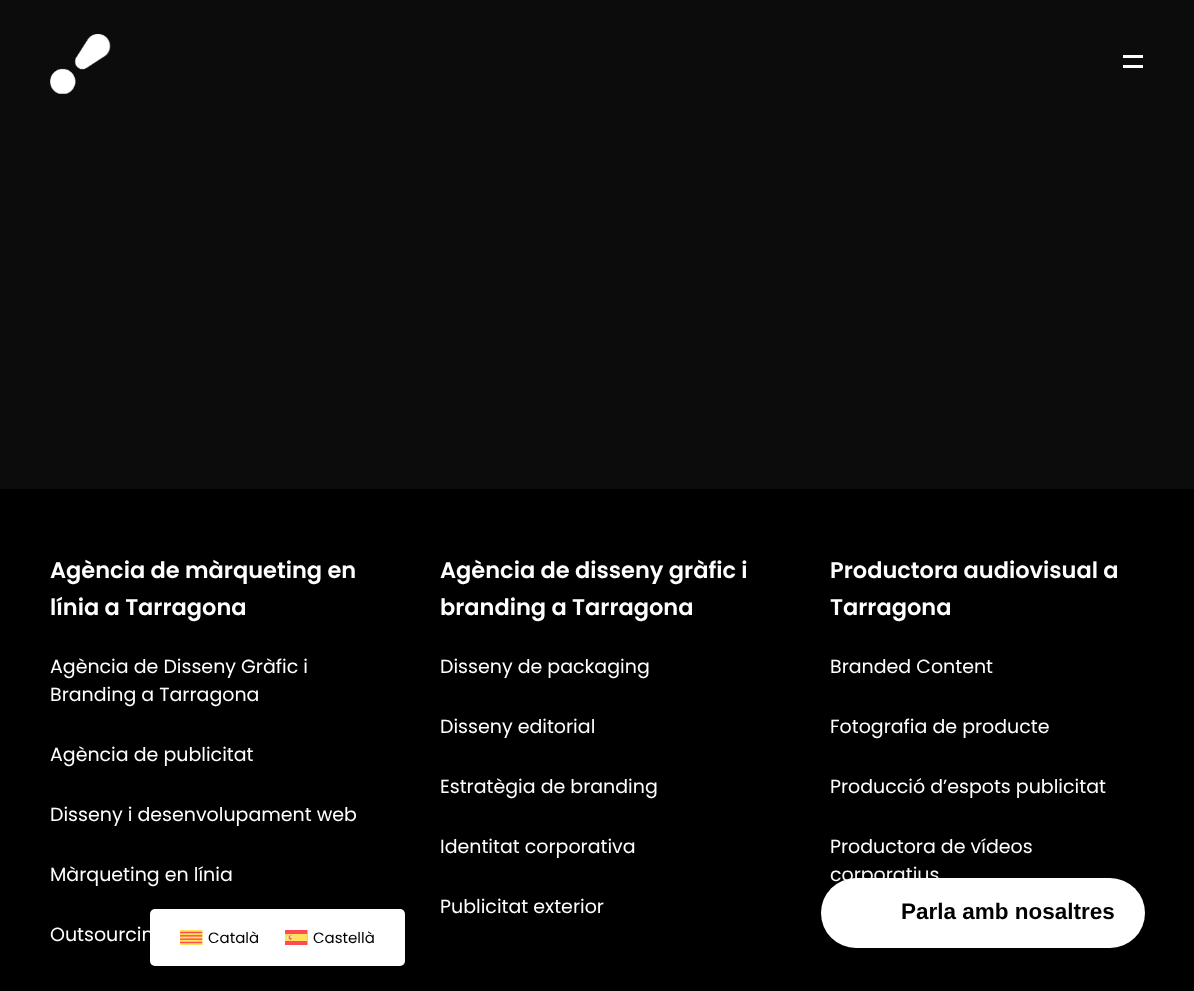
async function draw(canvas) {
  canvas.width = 1194;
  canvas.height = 991;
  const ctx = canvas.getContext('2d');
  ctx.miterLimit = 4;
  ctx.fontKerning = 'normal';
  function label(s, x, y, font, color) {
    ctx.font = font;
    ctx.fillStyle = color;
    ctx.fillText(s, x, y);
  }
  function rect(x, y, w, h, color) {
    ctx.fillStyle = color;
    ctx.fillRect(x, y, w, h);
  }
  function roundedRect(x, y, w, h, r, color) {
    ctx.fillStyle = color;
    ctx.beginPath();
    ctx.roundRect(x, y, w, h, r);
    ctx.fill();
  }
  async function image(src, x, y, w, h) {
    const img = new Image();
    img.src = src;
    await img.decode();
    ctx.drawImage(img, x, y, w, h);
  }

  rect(0, 0, 1194, 991, '#0c0c0c');
  await image('assets/img1.png', 50, 34, 61, 60);
  rect(1123, 55, 20, 3, '#fff');
  rect(1123, 65, 20, 3, '#fff');
  rect(0, 489, 1194, 502, '#000');
  label('Agència de màrqueting en', 50, 578, '600 22.5px Poppins', '#fff');
  label('línia a Tarragona', 50, 615, '600 22.5px Poppins', '#fff');
  label('Agència de Disseny Gràfic i', 50, 673, '19px Poppins', '#fff');
  label('Branding a Tarragona', 50, 701, '19px Poppins', '#fff');
  label('Agència de publicitat', 50, 761, '19px Poppins', '#fff');
  label('Disseny i desenvolupament web', 50, 821, '19px Poppins', '#fff');
  label('Màrqueting en línia', 50, 881, '19px Poppins', '#fff');
  label('Outsourcin', 50, 941, '19px Poppins', '#fff');
  label('Agència de disseny gràfic i', 440, 578, '600 22.5px Poppins', '#fff');
  label('branding a Tarragona', 440, 615, '600 22.5px Poppins', '#fff');
  label('Disseny de packaging', 440, 673, '19px Poppins', '#fff');
  label('Disseny editorial', 440, 733, '19px Poppins', '#fff');
  label('Estratègia de branding', 440, 793, '19px Poppins', '#fff');
  label('Identitat corporativa', 440, 853, '19px Poppins', '#fff');
  label('Publicitat exterior', 440, 913, '19px Poppins', '#fff');
  label('Productora audiovisual a', 830, 578, '600 22.5px Poppins', '#fff');
  label('Tarragona', 830, 615, '600 22.5px Poppins', '#fff');
  label('Branded Content', 830, 673, '19px Poppins', '#fff');
  label('Fotografia de producte', 830, 733, '19px Poppins', '#fff');
  label('Producció d’espots publicitat', 830, 793, '19px Poppins', '#fff');
  label('Productora de vídeos', 830, 853, '19px Poppins', '#fff');
  label('corporatius', 830, 881, '19px Poppins', '#fff');
  ctx.fillStyle = '#00000026';
  ctx.filter = 'blur(12.5px)';
  ctx.beginPath();
  ctx.roundRect(821, 883, 324, 70, 35);
  ctx.fill();
  ctx.filter = 'none';
  roundedRect(821, 878, 324, 70, 35, '#fff');
  label('Parla amb nosaltres', 901, 919, 'bold 22.5px Liberation Sans', '#000');
  ctx.fillStyle = '#00000026';
  ctx.filter = 'blur(2.5px)';
  ctx.beginPath();
  ctx.roundRect(150, 910, 255, 58, 5);
  ctx.fill();
  ctx.filter = 'none';
  roundedRect(150, 909, 255, 57, 5, '#fff');
  await image('assets/img2.png', 180, 930, 23, 15);
  label('Català', 208, 943, '15px Poppins', '#000');
  await image('assets/img3.png', 285, 930, 23, 15);
  label('Castellà', 313, 943, '15px Poppins', '#000');
}

draw(document.querySelector('canvas'));
